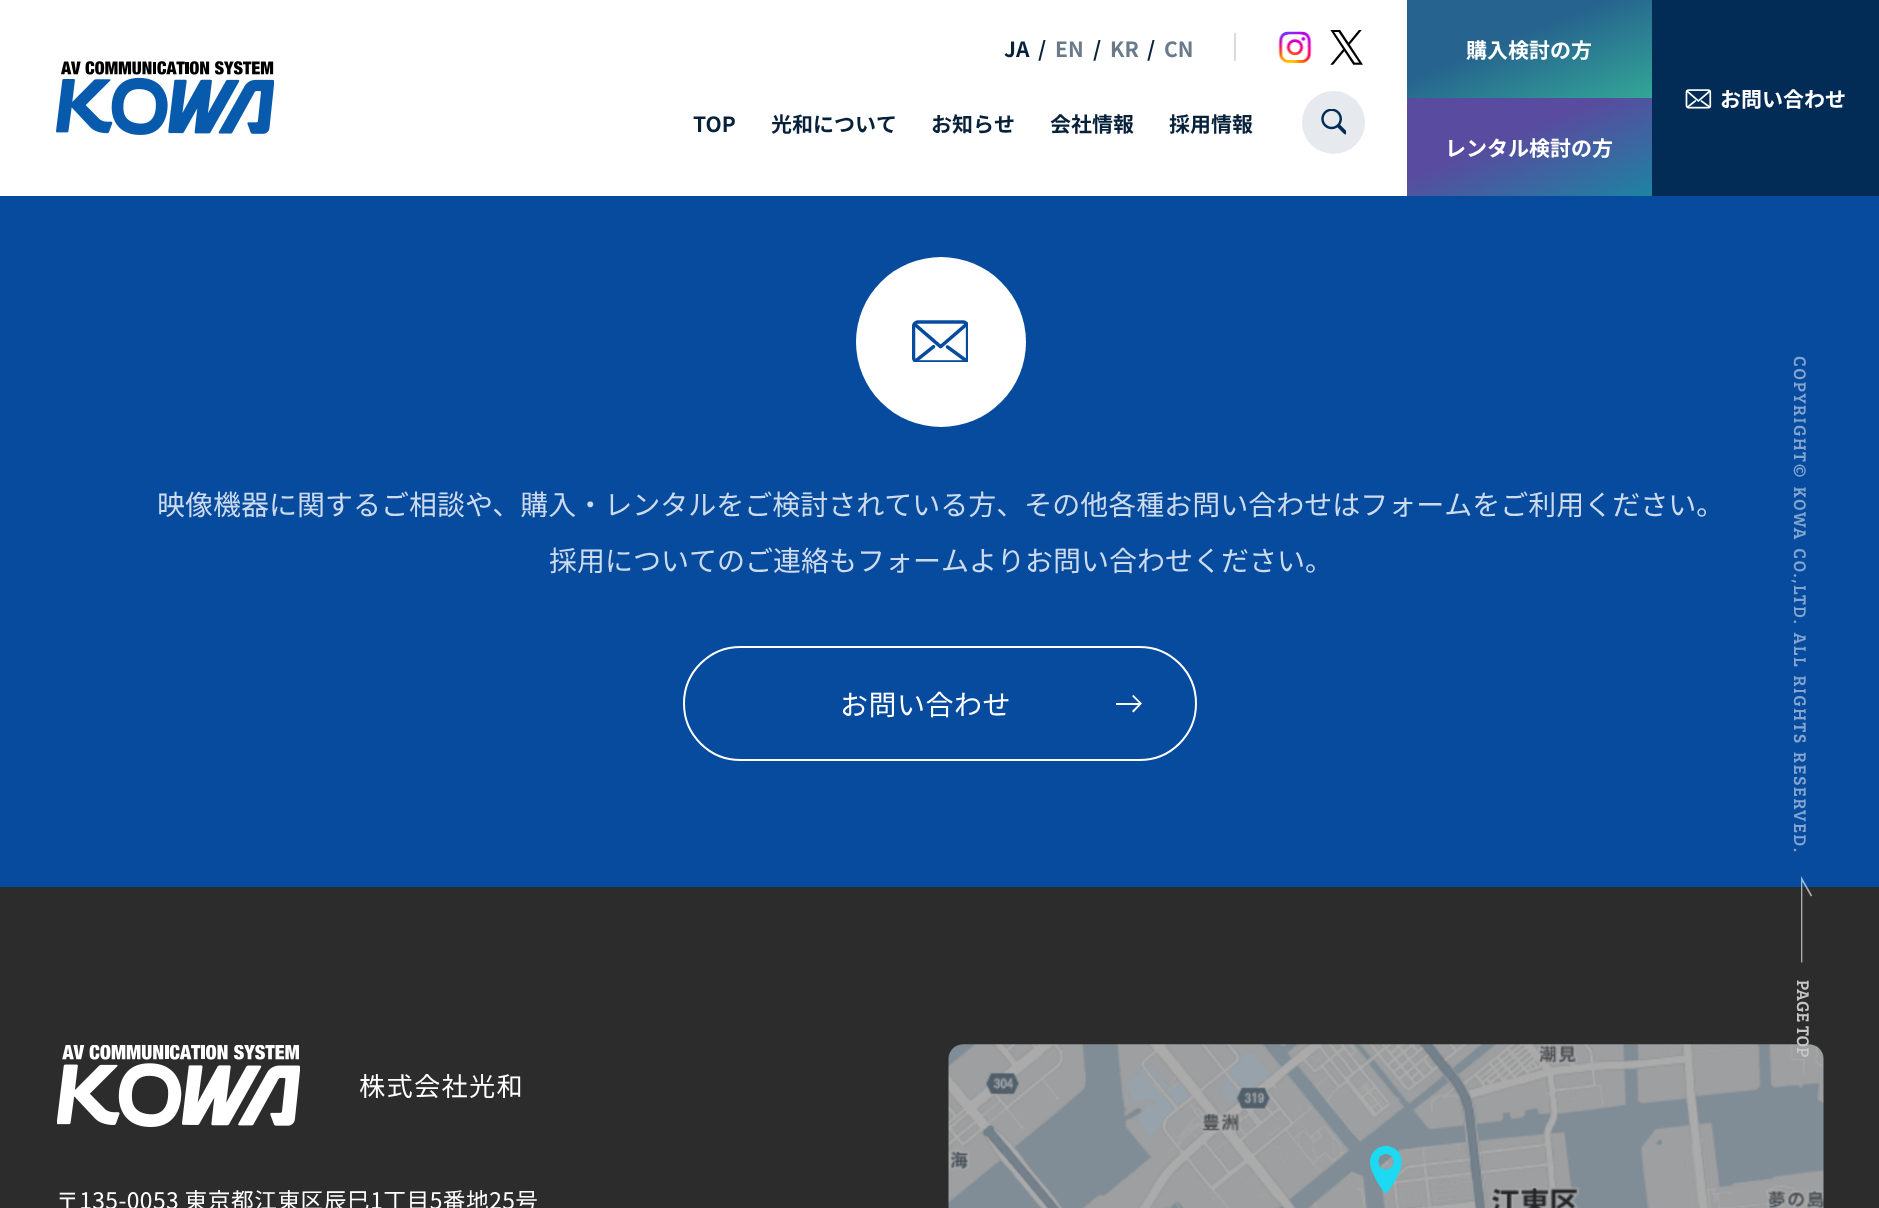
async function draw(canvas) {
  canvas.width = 1879;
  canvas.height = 1208;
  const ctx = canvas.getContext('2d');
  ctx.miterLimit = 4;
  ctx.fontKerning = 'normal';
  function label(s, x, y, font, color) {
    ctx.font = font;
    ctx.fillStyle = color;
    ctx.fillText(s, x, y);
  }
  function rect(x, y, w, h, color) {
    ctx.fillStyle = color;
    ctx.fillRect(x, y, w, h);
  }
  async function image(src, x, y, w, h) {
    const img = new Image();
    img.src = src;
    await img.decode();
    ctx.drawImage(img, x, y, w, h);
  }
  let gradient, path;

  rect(0, 0, 1879, 1208, '#2c2c2c');
  rect(0, 0, 1407, 196, '#fff');
  await image('assets/img1.png', 56, 61, 218, 74);
  label('JA', 1004, 57, 'bold 21px Noto Sans JP', '#08213b');
  label('/', 1038, 57, 'bold 21px Noto Sans JP', '#08213b');
  label('EN', 1055, 57, 'bold 21px Noto Sans JP', '#6b7a89');
  label('/', 1093, 57, 'bold 21px Noto Sans JP', '#08213b');
  label('KR', 1110, 57, 'bold 21px Noto Sans JP', '#6b7a89');
  label('/', 1147, 57, 'bold 21px Noto Sans JP', '#08213b');
  label('CN', 1164, 57, 'bold 21px Noto Sans JP', '#6b7a89');
  rect(1234, 33, 2, 28, '#dadbde');
  await image('assets/img2.png', 1278, 31, 34, 32);
  await image('assets/img3.png', 1330, 30, 33, 35);
  label('TOP', 693, 132, 'bold 21px Noto Sans JP', '#08213b');
  label('光和について', 771, 132, 'bold 21px Noto Sans JP', '#08213b');
  label('お知らせ', 931, 132, 'bold 21px Noto Sans JP', '#08213b');
  label('会社情報', 1050, 132, 'bold 21px Noto Sans JP', '#08213b');
  label('採用情報', 1169, 132, 'bold 21px Noto Sans JP', '#08213b');
  ctx.fillStyle = '#e6eaee';
  ctx.beginPath();
  ctx.arc(1333.5, 122.5, 31.5, 0, 2 * Math.PI);
  ctx.fill();
  await image('assets/img4.png', 1321, 109, 25, 26);
  gradient = ctx.createLinearGradient(1496, -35, 1563, 133);
  gradient.addColorStop(0.4, '#26638e');
  gradient.addColorStop(1, '#33a697');
  ctx.fillStyle = gradient;
  ctx.fillRect(1407, 0, 245, 98);
  label('購入検討の方', 1466, 58, 'bold 21px Noto Sans JP', '#fff');
  gradient = ctx.createLinearGradient(1496, 63, 1563, 231);
  gradient.addColorStop(0.4, '#594b9f');
  gradient.addColorStop(1, '#1d83a2');
  ctx.fillStyle = gradient;
  ctx.fillRect(1407, 98, 245, 98);
  label('レンタル検討の方', 1445, 156, 'bold 21px Noto Sans JP', '#fff');
  rect(1652, 0, 227, 196, '#022c55');
  await image('assets/img5.png', 1685, 89, 27, 20);
  label('お問い合わせ', 1720, 107, 'bold 21px Noto Sans JP', '#fff');
  rect(0, 196, 1879, 691, '#064b9e');
  ctx.fillStyle = '#fff';
  ctx.beginPath();
  ctx.arc(941, 342, 85, 0, 2 * Math.PI);
  ctx.fill();
  await image('assets/img6.png', 912, 320, 56, 42);
  label('映像機器に関するご相談や、購入・レンタルをご検討されている方、その他各種お問い合わせはフォームをご利用ください。', 157, 515, '28px Noto Sans JP', '#cddbec');
  label('採用についてのご連絡もフォームよりお問い合わせください。', 549, 571, '28px Noto Sans JP', '#cddbec');
  ctx.beginPath();
  ctx.roundRect(684, 647, 512, 113, 56.5);
  ctx.strokeStyle = '#fff';
  ctx.lineWidth = 2;
  ctx.stroke();
  ctx.letterSpacing = '0.5px';
  label('お問い合わせ', 840, 715, '28px Noto Sans JP', '#fff');
  rect(1116, 703, 24, 2, '#fff');
  path = new Path2D('M1133.5 695L1132 696L1139.5 703.5L1132 711L1133.5 712.5L1142 703.5Z');
  ctx.fill(path);
  ctx.letterSpacing = '1.75px';
  ctx.wordSpacing = '2px';
  ctx.font = '17.5px Bree Serif';
  ctx.fillStyle = '#83a5cf';
  ctx.save();
  ctx.translate(1794, 356);
  ctx.rotate(90 * Math.PI / 180);
  ctx.fillText('COPYRIGHT© KOWA CO.,LTD. ALL RIGHTS RESERVED.', 0, 0);
  ctx.restore();
  ctx.save();
  ctx.beginPath();
  ctx.rect(1801, 875, 12, 88);
  ctx.clip();
  path = new Path2D('M1801.5 962.5V878.5L1811.5 896');
  ctx.strokeStyle = '#ffffff99';
  ctx.lineWidth = 1.7;
  ctx.stroke(path);
  ctx.restore();
  await image('assets/img8.png', 948, 1044, 876, 164);
  ctx.letterSpacing = '0.25px';
  ctx.wordSpacing = '0px';
  ctx.fillStyle = '#c6c6c6';
  ctx.save();
  ctx.translate(1797, 980);
  ctx.rotate(90 * Math.PI / 180);
  ctx.fillText('PAGE TOP', 0, 0);
  ctx.restore();
  await image('assets/img7.png', 57, 1045, 243, 82);
  ctx.letterSpacing = '1.25px';
  label('株式会社光和', 359, 1096, '26.25px Noto Sans JP', '#fff');
  ctx.letterSpacing = '0.45px';
  label('〒135-0053 東京都江東区⾠⺒1丁⽬5番地25号', 56, 1209, '22.75px Noto Sans JP', '#fff');
}

draw(document.querySelector('canvas'));
